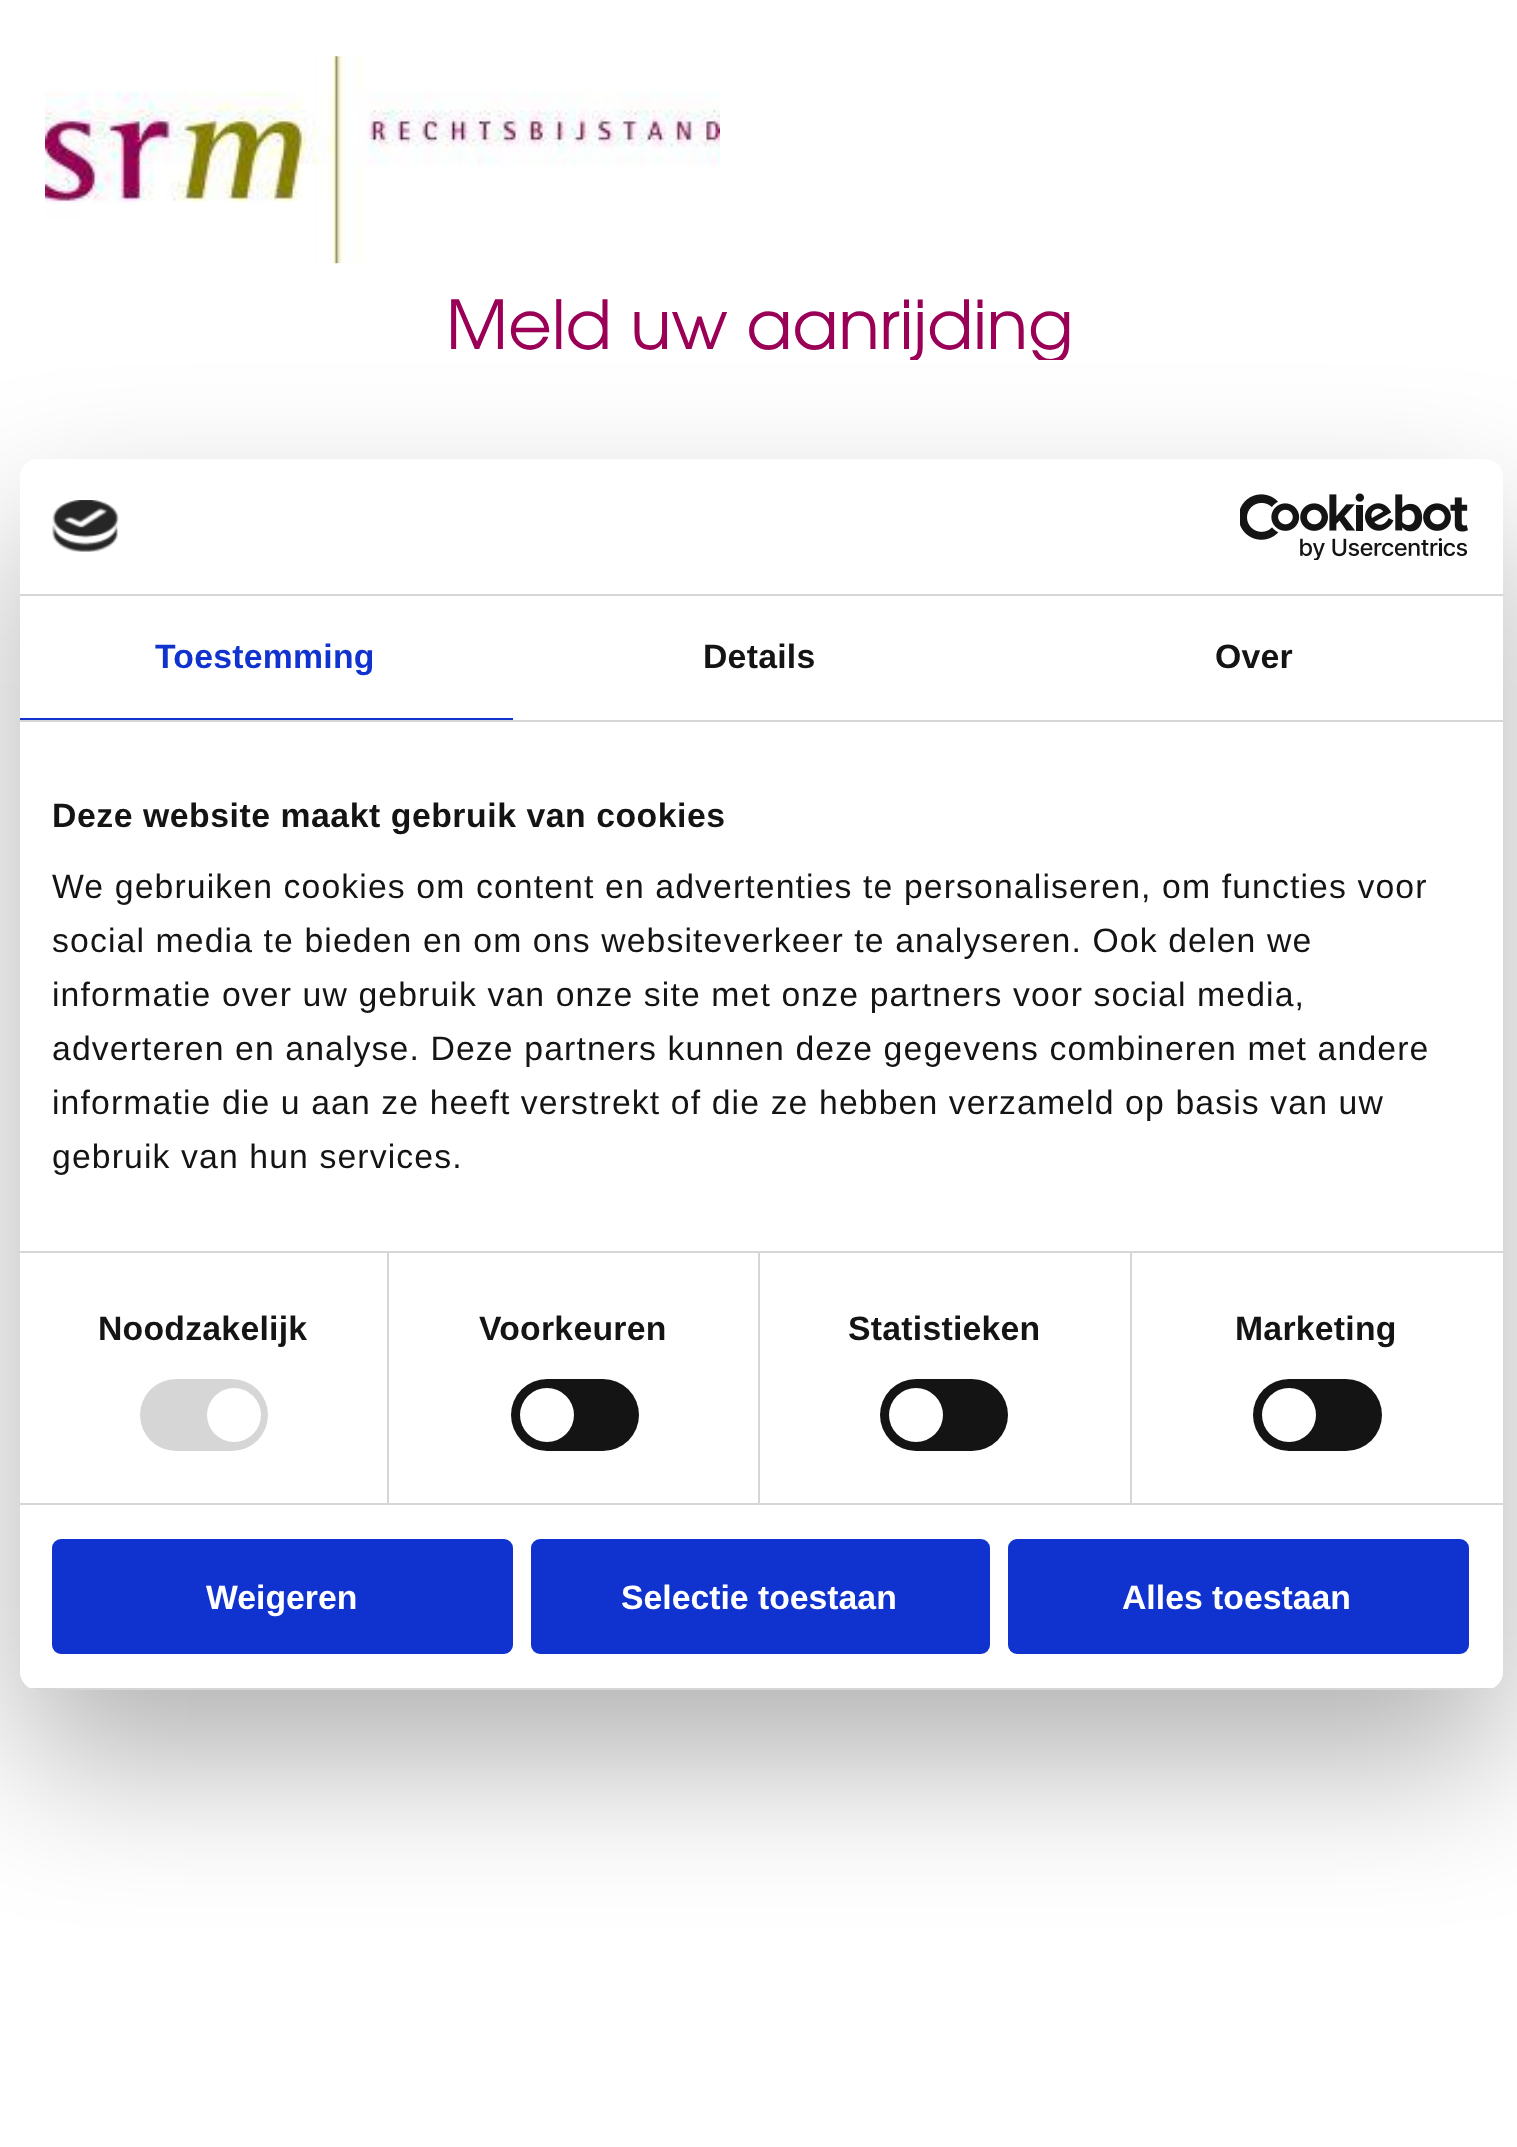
async function draw(canvas) {
  canvas.width = 1517;
  canvas.height = 2147;
  const ctx = canvas.getContext('2d');
  ctx.miterLimit = 4;
  ctx.fontKerning = 'normal';
  function label(s, x, y, font, color) {
    ctx.font = font;
    ctx.fillStyle = color;
    ctx.fillText(s, x, y);
  }
  function rect(x, y, w, h, color) {
    ctx.fillStyle = color;
    ctx.fillRect(x, y, w, h);
  }
  function roundedRect(x, y, w, h, r, color) {
    ctx.fillStyle = color;
    ctx.beginPath();
    ctx.roundRect(x, y, w, h, r);
    ctx.fill();
  }
  async function image(src, x, y, w, h) {
    const img = new Image();
    img.src = src;
    await img.decode();
    ctx.drawImage(img, x, y, w, h);
  }

  rect(0, 0, 1517, 2147, '#fff');
  await image('assets/img1.png', 45, 56, 675, 208);
  ctx.save();
  ctx.beginPath();
  ctx.rect(0, 263, 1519, 97);
  ctx.clip();
  label('Meld uw aanrijding', 446, 349, '67.5px TeX Gyre Adventor', '#9a0056');
  ctx.restore();
  ctx.fillStyle = '#0000004d';
  ctx.filter = 'blur(76.5px)';
  ctx.beginPath();
  ctx.roundRect(20, 531, 1483, 1231, 18);
  ctx.fill();
  ctx.filter = 'none';
  roundedRect(20, 459, 1483, 1231, 18, '#fff');
  rect(20, 594, 1483, 2, '#d6d6d6');
  await image('assets/img2.png', 52, 500, 67, 52);
  await image('assets/img3.png', 1240, 493, 228, 67);
  rect(20, 720, 1483, 2, '#d6d6d6');
  rect(20, 718, 493, 2, '#1032cf');
  ctx.letterSpacing = '0.25px';
  label('Toestemming', 155, 668, 'bold 33.75px Liberation Sans', '#1032cf');
  label('Details', 703, 668, 'bold 33.75px Liberation Sans', '#141414');
  label('Over', 1215, 668, 'bold 33.75px Liberation Sans', '#141414');
  rect(20, 1251, 1483, 2, '#d6d6d6');
  ctx.letterSpacing = '0.55px';
  label('Deze website maakt gebruik van cookies', 52, 827, 'bold 33.75px Liberation Sans', '#141414');
  ctx.letterSpacing = '1.12px';
  label('We gebruiken cookies om content en advertenties te personaliseren, om functies voor', 52, 898, '33.75px Liberation Sans', '#141414');
  label('social media te bieden en om ons websiteverkeer te analyseren. Ook delen we', 52, 952, '33.75px Liberation Sans', '#141414');
  label('informatie over uw gebruik van onze site met onze partners voor social media,', 52, 1006, '33.75px Liberation Sans', '#141414');
  label('adverteren en analyse. Deze partners kunnen deze gegevens combineren met andere', 52, 1060, '33.75px Liberation Sans', '#141414');
  label('informatie die u aan ze heeft verstrekt of die ze hebben verzameld op basis van uw', 52, 1114, '33.75px Liberation Sans', '#141414');
  label('gebruik van hun services.', 52, 1168, '33.75px Liberation Sans', '#141414');
  rect(20, 1503, 1483, 2, '#d6d6d6');
  rect(387, 1253, 2, 250, '#d6d6d6');
  ctx.letterSpacing = '0.25px';
  label('Noodzakelijk', 98, 1340, 'bold 33.75px Liberation Sans', '#141414');
  roundedRect(140, 1379, 128, 72, 36, '#d6d6d6');
  ctx.fillStyle = '#fff';
  ctx.beginPath();
  ctx.arc(234, 1415, 27, 0, 2 * Math.PI);
  ctx.fill();
  rect(758, 1253, 2, 250, '#d6d6d6');
  label('Voorkeuren', 479, 1340, 'bold 33.75px Liberation Sans', '#141414');
  roundedRect(511, 1379, 128, 72, 36, '#141414');
  ctx.fillStyle = '#fff';
  ctx.beginPath();
  ctx.arc(547, 1415, 27, 0, 2 * Math.PI);
  ctx.fill();
  rect(1130, 1253, 2, 250, '#d6d6d6');
  label('Statistieken', 848, 1340, 'bold 33.75px Liberation Sans', '#141414');
  roundedRect(880, 1379, 128, 72, 36, '#141414');
  ctx.fillStyle = '#fff';
  ctx.beginPath();
  ctx.arc(916, 1415, 27, 0, 2 * Math.PI);
  ctx.fill();
  label('Marketing', 1235, 1340, 'bold 33.75px Liberation Sans', '#141414');
  roundedRect(1253, 1379, 129, 72, 36, '#141414');
  ctx.fillStyle = '#fff';
  ctx.beginPath();
  ctx.arc(1289, 1415, 27, 0, 2 * Math.PI);
  ctx.fill();
  ctx.save();
  ctx.beginPath();
  ctx.roundRect(20, 459, 1483, 1231, 18);
  ctx.clip();
  rect(30, 1688, 1463, 2, '#d6d6d6');
  ctx.restore();
  ctx.fillStyle = '#1032cf';
  ctx.beginPath();
  ctx.roundRect(54.5, 1541.5, 456, 110, 6.5);
  ctx.fill();
  ctx.strokeStyle = '#1032cf';
  ctx.lineWidth = 5;
  ctx.stroke();
  ctx.letterSpacing = '0px';
  label('Weigeren', 206, 1609, 'bold 33.75px Liberation Sans', '#fff');
  ctx.fillStyle = '#1032cf';
  ctx.beginPath();
  ctx.roundRect(533.5, 1541.5, 454, 110, 6.5);
  ctx.fill();
  ctx.stroke();
  label('Selectie toestaan', 621, 1609, 'bold 33.75px Liberation Sans', '#fff');
  ctx.fillStyle = '#1032cf';
  ctx.beginPath();
  ctx.roundRect(1010.5, 1541.5, 456, 110, 6.5);
  ctx.fill();
  ctx.stroke();
  label('Alles toestaan', 1122, 1609, 'bold 33.75px Liberation Sans', '#fff');
}

draw(document.querySelector('canvas'));
